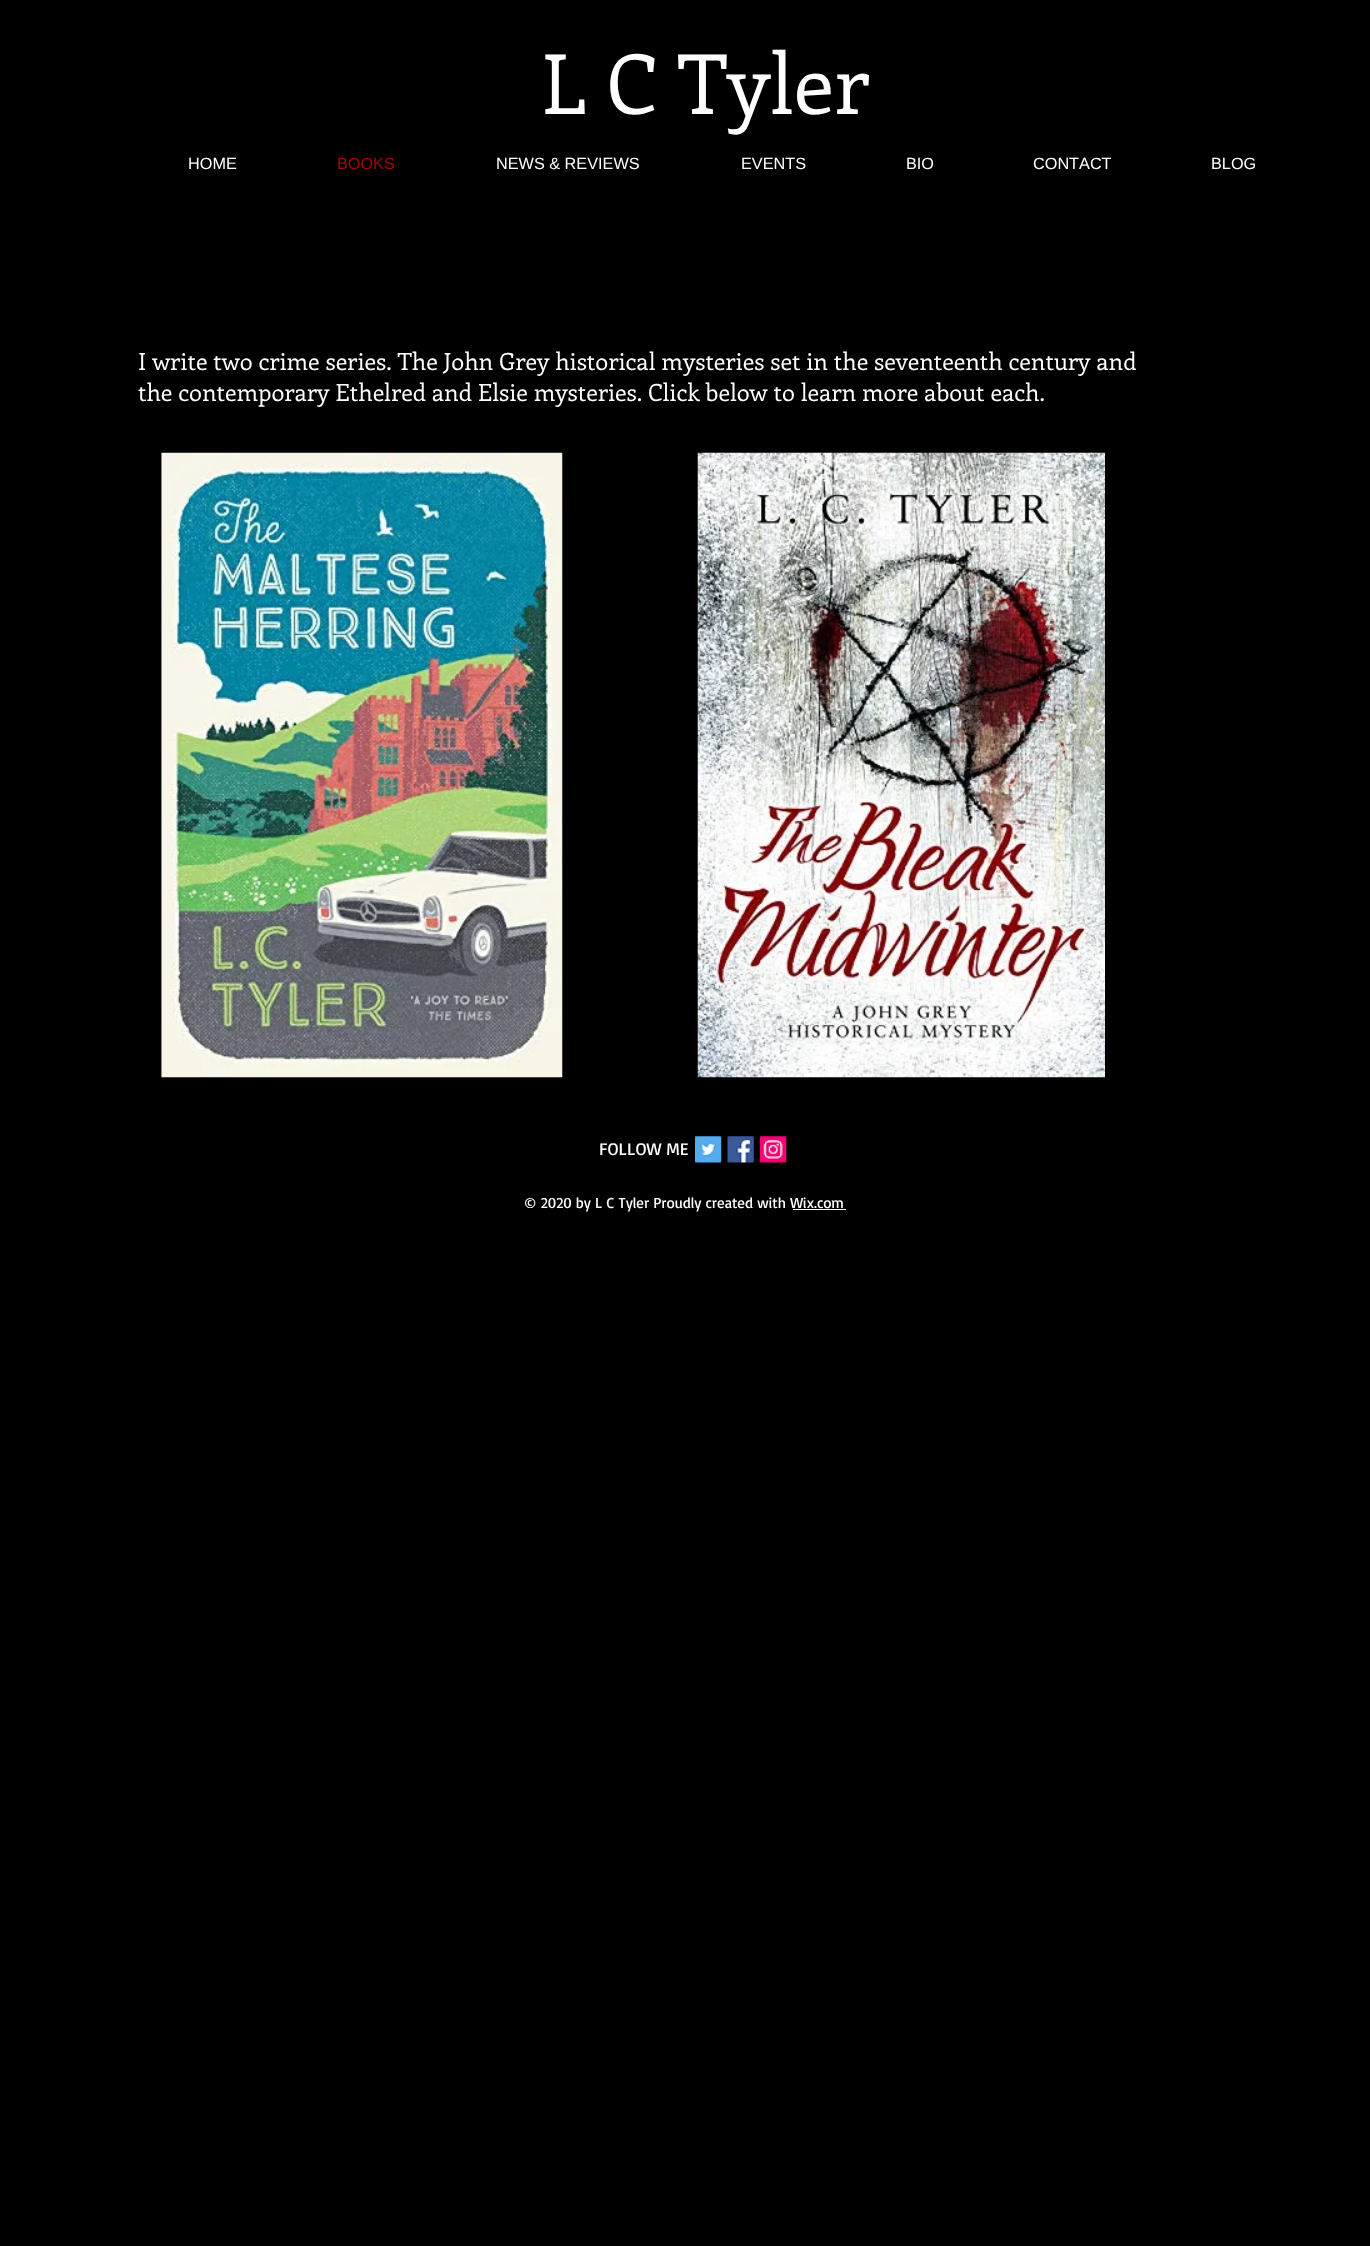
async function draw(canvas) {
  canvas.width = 1370;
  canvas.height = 2246;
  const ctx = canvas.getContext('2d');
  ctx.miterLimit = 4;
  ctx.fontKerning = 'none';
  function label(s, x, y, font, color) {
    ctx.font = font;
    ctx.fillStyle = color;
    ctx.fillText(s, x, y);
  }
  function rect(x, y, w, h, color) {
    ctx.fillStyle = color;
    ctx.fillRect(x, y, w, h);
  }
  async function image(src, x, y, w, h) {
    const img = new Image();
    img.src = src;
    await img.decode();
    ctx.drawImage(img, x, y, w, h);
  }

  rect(0, 0, 1370, 2246, '#000');
  label('L C Tyler', 541, 114, '82.5px Enriqueta', '#fff');
  label('HOME', 188, 169, '16.25px Liberation Sans', '#fff');
  label('BOOKS', 337, 169, '16.25px Liberation Sans', '#a40606');
  label('NEWS & REVIEWS', 496, 169, '16.25px Liberation Sans', '#fff');
  label('EVENTS', 741, 169, '16.25px Liberation Sans', '#fff');
  label('BIO', 906, 169, '16.25px Liberation Sans', '#fff');
  label('CONTACT', 1033, 169, '16.25px Liberation Sans', '#fff');
  label('BLOG', 1211, 169, '16.25px Liberation Sans', '#fff');
  label('I write two crime series. The John Grey historical mysteries set in the seventeenth century and', 138, 370, '23.75px Enriqueta', '#fff');
  label('the contemporary Ethelred and Elsie mysteries. Click below to learn more about each.', 138, 401, '23.75px Enriqueta', '#fff');
  await image('assets/img1.png', 161, 452, 402, 626);
  await image('assets/img2.png', 697, 452, 408, 626);
  label('FOLLOW ME', 599, 1155, '17.5px Basic', '#fff');
  await image('assets/img3.png', 695, 1136, 27, 27);
  await image('assets/img4.png', 727, 1136, 27, 27);
  await image('assets/img5.png', 760, 1136, 27, 27);
  label('© 2020 by L C Tyler Proudly created with Wix.com', 524, 1208, '15px Basic', '#fff');
  rect(793, 1209, 53, 1, '#fff');
}

draw(document.querySelector('canvas'));
